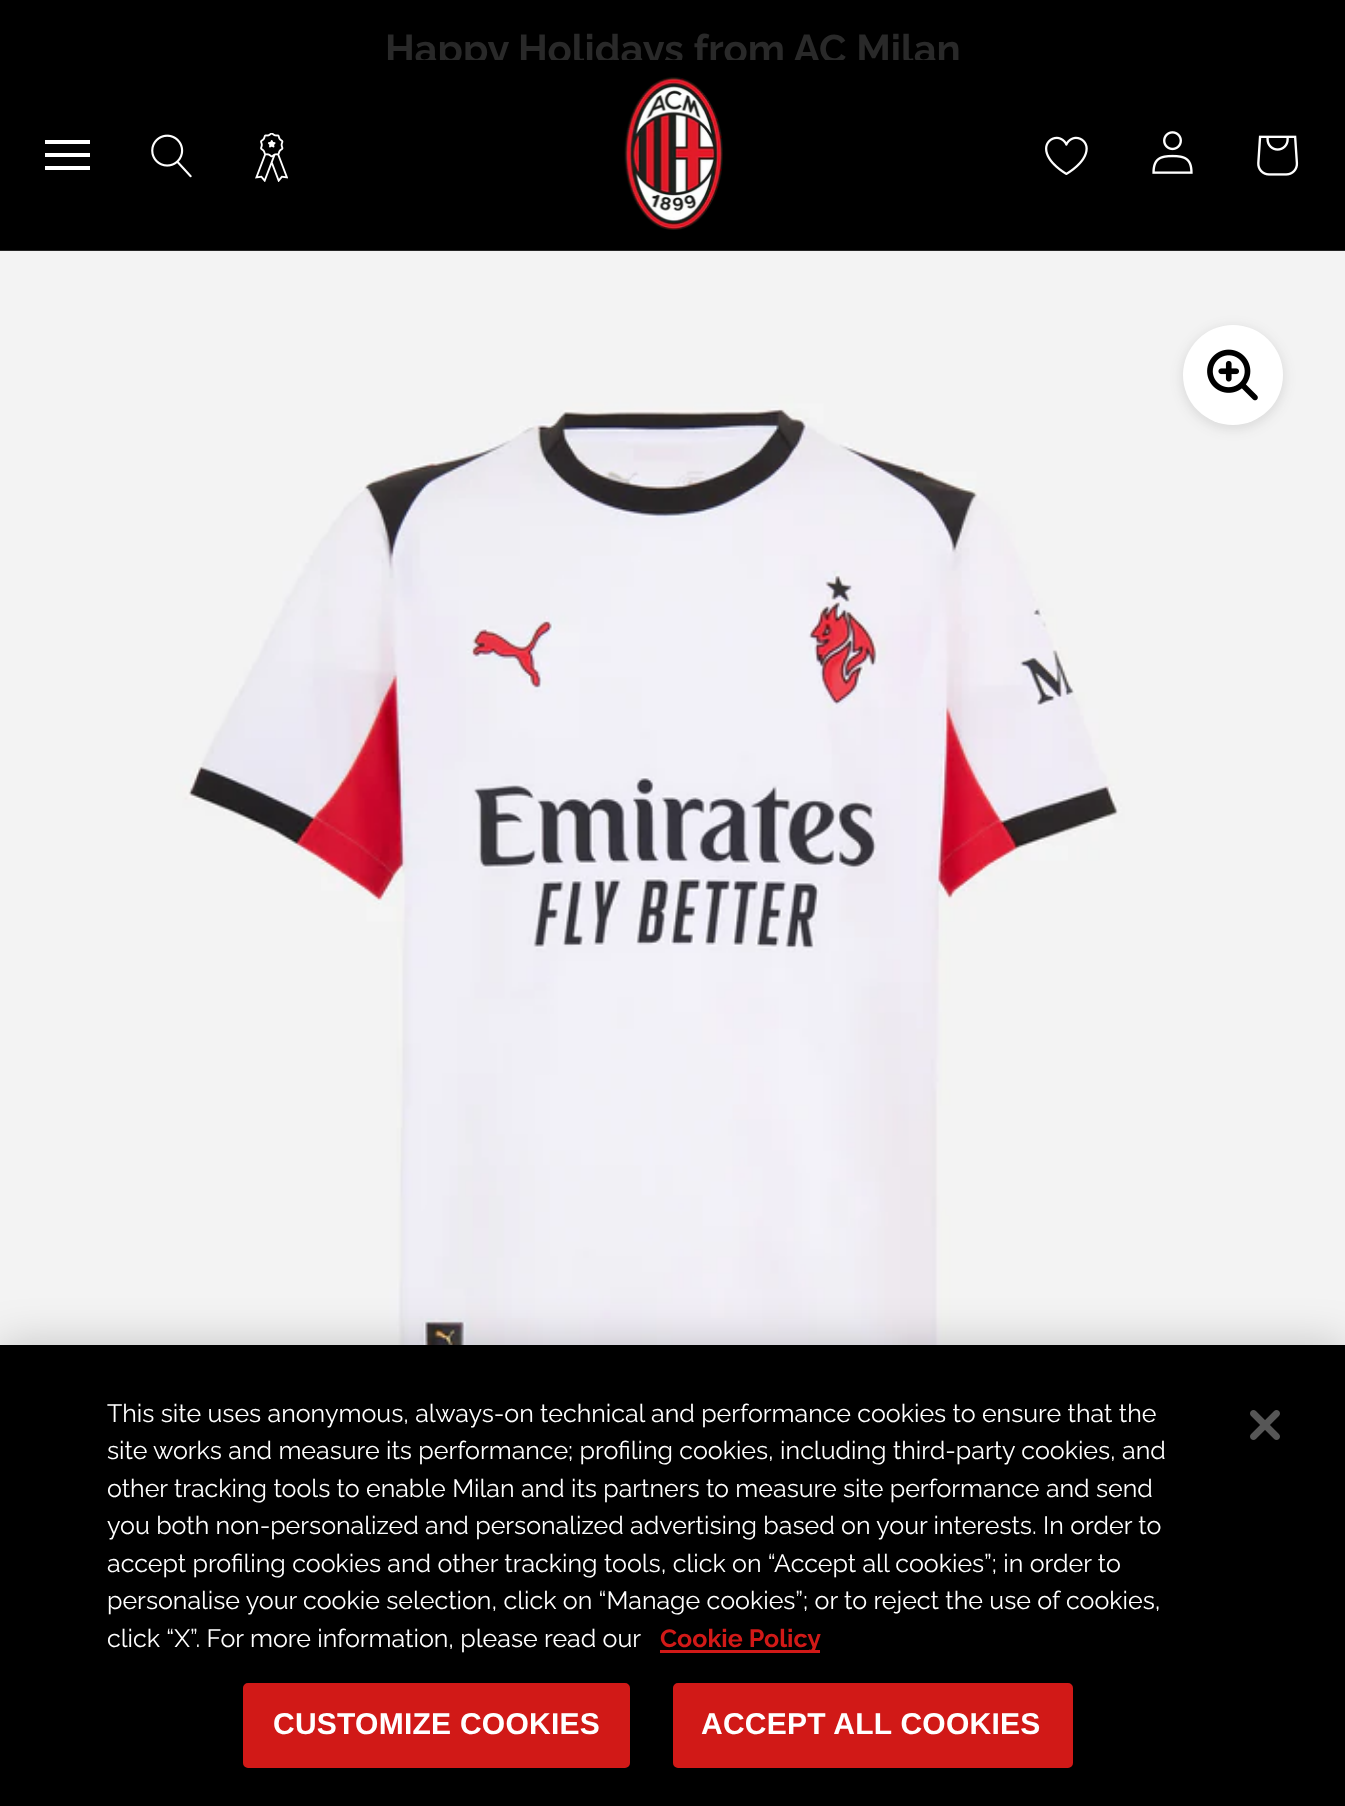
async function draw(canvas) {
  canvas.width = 1345;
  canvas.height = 1806;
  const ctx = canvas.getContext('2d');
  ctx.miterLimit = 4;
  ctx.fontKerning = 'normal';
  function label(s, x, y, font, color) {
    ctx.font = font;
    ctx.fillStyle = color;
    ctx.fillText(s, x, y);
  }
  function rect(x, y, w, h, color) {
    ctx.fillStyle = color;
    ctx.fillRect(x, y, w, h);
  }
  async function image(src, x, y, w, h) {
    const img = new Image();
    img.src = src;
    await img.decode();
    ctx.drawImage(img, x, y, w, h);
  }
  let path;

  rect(0, 0, 1345, 1806, '#fff');
  rect(0, 0, 1345, 60, '#000');
  label('Happy Holidays from AC Milan', 385, 63, 'bold 40px Raleway', '#292929');
  rect(0, 250, 1345, 1, '#262626');
  rect(0, 60, 1345, 190, '#000');
  ctx.fillStyle = '#fff';
  path = new Path2D('M45 170V166H90V170ZM45 153H90V157H45ZM45 140H90V144H45Z');
  ctx.fill(path);
  await image('assets/img1.png', 151, 134, 41, 44);
  await image('assets/img2.png', 255, 133, 33, 49);
  await image('assets/img3.png', 624, 77, 99, 153);
  await image('assets/img4.png', 1045, 136, 43, 39);
  await image('assets/img5.png', 1152, 131, 41, 43);
  await image('assets/img6.png', 1257, 135, 42, 41);
  await image('assets/img7.png', 0, 251, 1345, 1094);
  ctx.fillStyle = '#36363626';
  ctx.filter = 'blur(6.5px)';
  ctx.beginPath();
  ctx.roundRect(1183, 328, 100, 100, 50);
  ctx.fill();
  ctx.filter = 'none';
  ctx.fillStyle = '#fff';
  ctx.beginPath();
  ctx.arc(1233, 375, 50, 0, 2 * Math.PI);
  ctx.fill();
  await image('assets/img8.png', 1207, 349, 51, 52);
  ctx.fillStyle = '#00000033';
  ctx.filter = 'blur(22.5px)';
  ctx.beginPath();
  ctx.rect(0, 1345, 1345, 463);
  ctx.fill();
  ctx.filter = 'none';
  rect(0, 1345, 1345, 461, '#000');
  label('This site uses anonymous, always-on technical and performance cookies to ensure that the', 107, 1422, '25px Raleway', '#fff');
  label('site works and measure its performance; profiling cookies, including third-party cookies, and', 107, 1459, '25px Raleway', '#fff');
  label('other tracking tools to enable Milan and its partners to measure site performance and send', 107, 1497, '25px Raleway', '#fff');
  label('you both non-personalized and personalized advertising based on your interests. In order to', 107, 1534, '25px Raleway', '#fff');
  label('accept profiling cookies and other tracking tools, click on “Accept all cookies”; in order to', 107, 1572, '25px Raleway', '#fff');
  label('personalise your cookie selection, click on “Manage cookies”; or to reject the use of cookies,', 107, 1609, '25px Raleway', '#fff');
  label('click “X”. For more information, please read our', 107, 1647, '25px Raleway', '#fff');
  rect(660, 1650, 160, 3, '#d11917');
  label('Cookie Policy', 660, 1647, 'bold 25px Raleway', '#d11917');
  ctx.beginPath();
  ctx.roundRect(245.5, 1685.5, 382, 80, 2.5);
  ctx.fill();
  ctx.strokeStyle = '#d11917';
  ctx.lineWidth = 5;
  ctx.stroke();
  ctx.letterSpacing = '0.25px';
  label('CUSTOMIZE COOKIES', 273, 1734, 'bold 30px Liberation Sans', '#fff');
  ctx.fillStyle = '#d11917';
  ctx.beginPath();
  ctx.roundRect(675.5, 1685.5, 395, 80, 2.5);
  ctx.fill();
  ctx.stroke();
  label('ACCEPT ALL COOKIES', 701, 1734, 'bold 30px Liberation Sans', '#fff');
  await image('assets/img9.png', 1250, 1410, 30, 30);
}

draw(document.querySelector('canvas'));
